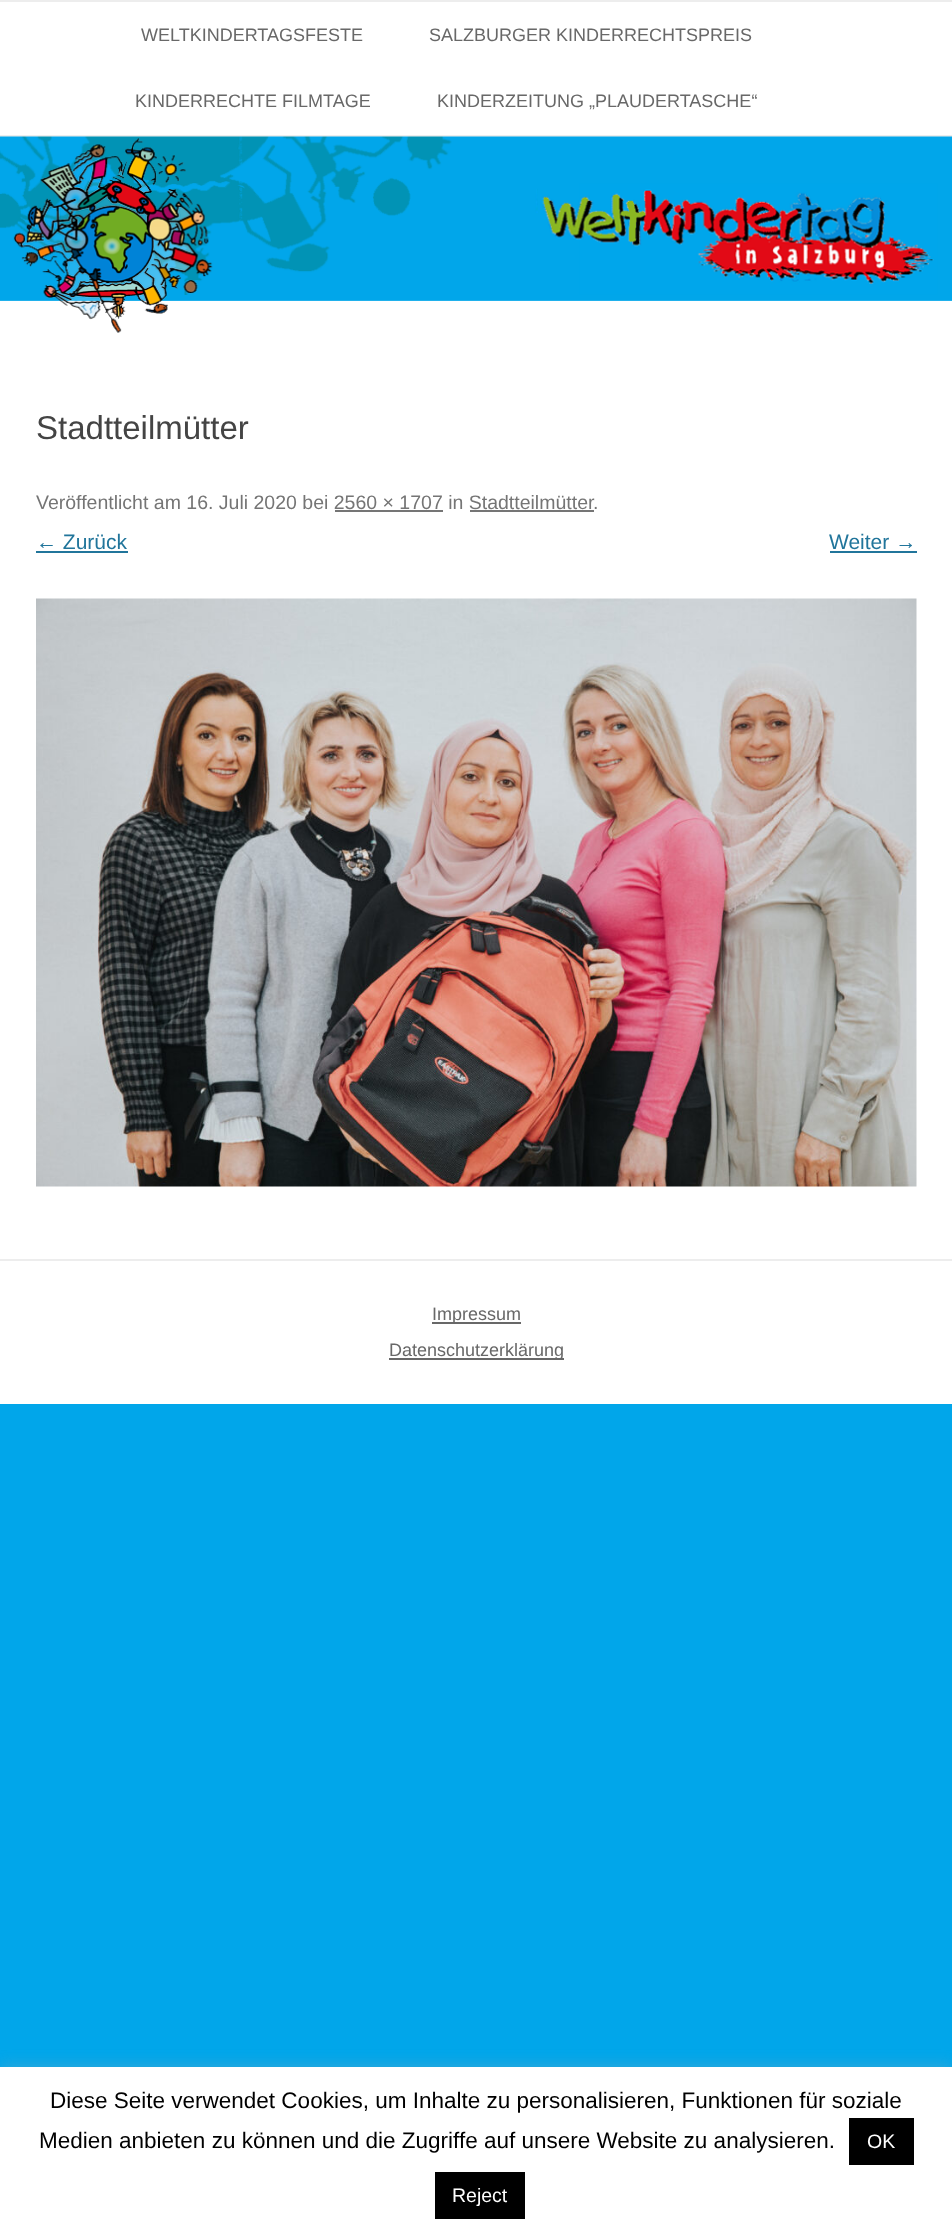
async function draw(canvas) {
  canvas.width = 952;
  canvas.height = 2236;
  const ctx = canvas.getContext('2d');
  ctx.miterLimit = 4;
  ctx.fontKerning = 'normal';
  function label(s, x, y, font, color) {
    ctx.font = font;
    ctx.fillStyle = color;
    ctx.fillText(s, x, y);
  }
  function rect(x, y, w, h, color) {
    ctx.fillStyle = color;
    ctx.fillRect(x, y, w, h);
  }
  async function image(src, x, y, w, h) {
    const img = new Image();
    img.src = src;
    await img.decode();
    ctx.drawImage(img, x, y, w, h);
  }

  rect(0, 0, 952, 2236, '#01a6ea');
  rect(0, 2, 952, 1402, '#fff');
  rect(0, 0, 952, 2, '#ededed');
  rect(0, 135, 952, 2, '#ededed');
  label('WELTKINDERTAGSFESTE', 141, 41, '18px Liberation Sans', '#686868');
  label('SALZBURGER KINDERRECHTSPREIS', 429, 41, '18px Liberation Sans', '#686868');
  label('KINDERRECHTE FILMTAGE', 135, 107, '18px Liberation Sans', '#686868');
  label('KINDERZEITUNG „PLAUDERTASCHE“', 437, 107, '18px Liberation Sans', '#686868');
  await image('assets/img1.png', 0, 136, 952, 197);
  label('Stadtteilmütter', 36, 439, '33px Liberation Sans', '#444');
  label('Veröffentlicht am 16. Juli 2020 bei 2560 × 1707 in Stadtteilmütter', 36, 509, '19.5px Liberation Sans', '#757575');
  label('.', 593, 509, '19.5px Liberation Sans', '#757575');
  rect(335, 510, 108, 2, '#757575');
  rect(470, 510, 124, 2, '#757575');
  label('← Zurück', 36, 549, '21px Liberation Sans', '#21759b');
  rect(36, 551, 92, 2, '#21759b');
  label('Weiter →', 829, 549, '21px Liberation Sans', '#21759b');
  rect(830, 551, 87, 2, '#21759b');
  await image('assets/img2.png', 36, 598, 881, 589);
  rect(0, 1259, 952, 2, '#ededed');
  rect(432, 1322, 89, 2, '#686868');
  label('Impressum', 432, 1320, '18px Liberation Sans', '#686868');
  rect(389, 1358, 175, 2, '#686868');
  label('Datenschutzerklärung', 389, 1356, '18px Liberation Sans', '#686868');
  ctx.fillStyle = '#acabab4d';
  ctx.filter = 'blur(7.5px)';
  ctx.beginPath();
  ctx.rect(0, 2066, 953, 169);
  ctx.fill();
  ctx.filter = 'none';
  rect(0, 2067, 952, 169, '#fff');
  label('Diese Seite verwendet Cookies, um Inhalte zu personalisieren, Funktionen für soziale', 50, 2108, '22.5px Liberation Sans', '#000');
  label('Medien anbieten zu können und die Zugriffe auf unsere Website zu analysieren.', 39, 2148, '22.5px Liberation Sans', '#000');
  rect(849, 2118, 65, 47, '#000');
  label('OK', 867, 2148, '19.5px Liberation Sans', '#fff');
  rect(435, 2172, 90, 47, '#000');
  label('Reject', 452, 2202, '19.5px Liberation Sans', '#fff');
}

draw(document.querySelector('canvas'));
